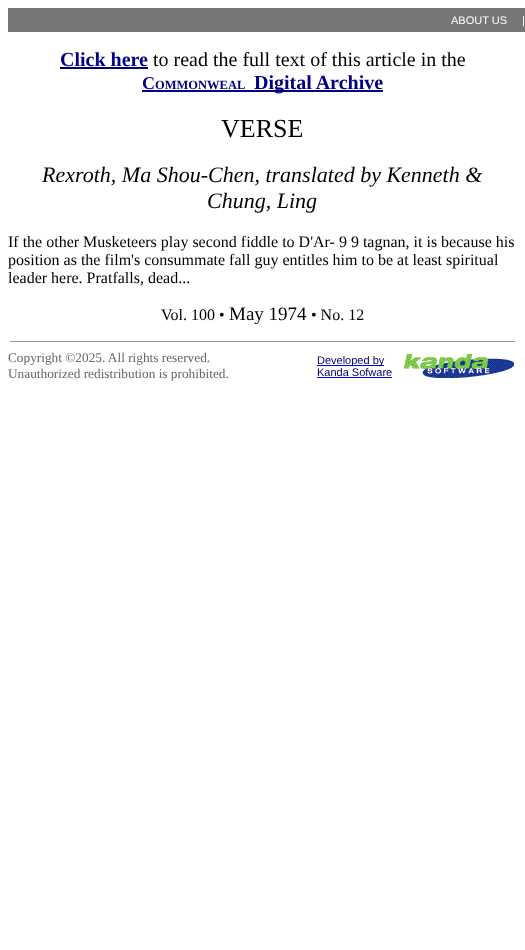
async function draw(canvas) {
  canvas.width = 525;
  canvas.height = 950;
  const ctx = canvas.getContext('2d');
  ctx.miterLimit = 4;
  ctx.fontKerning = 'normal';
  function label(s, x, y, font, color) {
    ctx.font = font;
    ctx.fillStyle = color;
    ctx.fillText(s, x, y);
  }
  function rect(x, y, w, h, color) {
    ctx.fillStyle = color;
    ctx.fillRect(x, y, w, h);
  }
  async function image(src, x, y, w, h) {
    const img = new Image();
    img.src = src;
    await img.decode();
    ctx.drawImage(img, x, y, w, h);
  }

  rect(0, 0, 525, 950, '#fff');
  rect(8, 8, 517, 24, '#797676');
  label('ABOUT US', 451, 24, '11px Liberation Sans', '#fff');
  label('|', 522, 24, '11px Liberation Sans', '#fff');
  label('Click here', 60, 66, 'bold 20px Liberation Serif', '#000080');
  rect(60, 67, 88, 2, '#000080');
  label('to read the full text of this article in the', 153, 66, '20px Liberation Serif', '#000');
  label('C', 142, 89, 'bold 18px Liberation Serif', '#000080');
  label('OMMONWEAL', 155, 89, 'bold 12.5px Liberation Serif', '#000080');
  rect(142, 90, 241, 2, '#000080');
  label('Digital Archive', 254, 89, 'bold 20px Liberation Serif', '#000080');
  label('VERSE', 221, 137, '26px Liberation Serif', '#000');
  label('Rexroth, Ma Shou-Chen, translated by Kenneth &', 42, 182, 'italic 22px Liberation Serif', '#000');
  label('Chung, Ling', 207, 208, 'italic 22px Liberation Serif', '#000');
  label('If the other Musketeers play second fiddle to D\'Ar- 9 9 tagnan, it is because his', 8, 247, '16px Liberation Serif', '#000');
  label('position as the film\'s consummate fall guy entitles him to be at least spiritual', 8, 265, '16px Liberation Serif', '#000');
  label('leader here. Pratfalls, dead...', 8, 283, '16px Liberation Serif', '#000');
  label('Vol. 100 •', 161, 320, '16px Liberation Serif', '#000');
  label('May 1974', 229, 320, '19px Liberation Serif', '#000');
  label('• No. 12', 311, 320, '16px Liberation Serif', '#000');
  rect(10, 341, 505, 1, '#999');
  label('Copyright ©2025. All rights reserved.', 8, 362, '13.3px Liberation Serif', '#666');
  label('Unauthorized redistribution is prohibited.', 8, 378, '13.3px Liberation Serif', '#666');
  rect(317, 365, 67, 1, '#00e');
  label('Developed by', 317, 364, '11px Liberation Sans', '#006');
  label('Kanda Sofware', 317, 376, '11px Liberation Sans', '#006');
  rect(317, 377, 75, 1, '#00e');
  await image('assets/img1.png', 404, 354, 110, 24);
}

draw(document.querySelector('canvas'));
